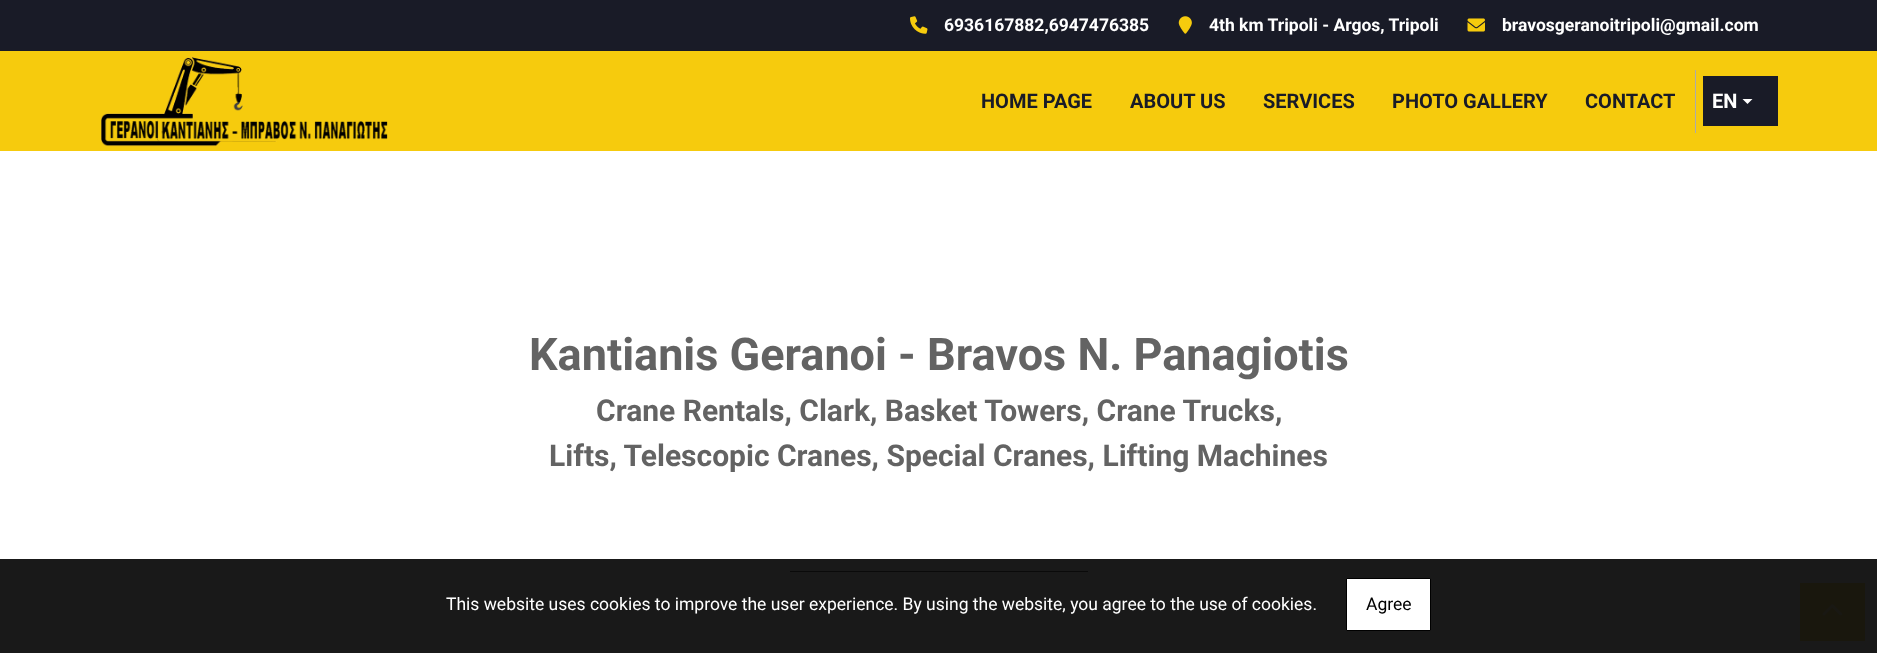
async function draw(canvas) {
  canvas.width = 1877;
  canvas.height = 653;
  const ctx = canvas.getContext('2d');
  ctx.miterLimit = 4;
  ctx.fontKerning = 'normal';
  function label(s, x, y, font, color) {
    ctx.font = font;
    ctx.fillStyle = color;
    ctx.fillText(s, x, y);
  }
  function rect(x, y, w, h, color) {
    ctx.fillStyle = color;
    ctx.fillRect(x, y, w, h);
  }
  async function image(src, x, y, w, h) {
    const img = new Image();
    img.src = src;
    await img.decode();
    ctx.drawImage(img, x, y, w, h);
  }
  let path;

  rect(0, 0, 1877, 653, '#fff');
  rect(0, 0, 1877, 51, '#191b27');
  await image('assets/img1.png', 910, 16, 18, 18);
  label('6936167882,6947476385', 944, 31, 'bold 17.5px Roboto', '#fff');
  await image('assets/img2.png', 1178, 16, 14, 18);
  label('4th km Tripoli - Argos, Tripoli', 1209, 31, 'bold 17.5px Roboto', '#fff');
  await image('assets/img3.png', 1467, 18, 18, 14);
  label('bravosgeranoitripoli@gmail.com', 1502, 31, 'bold 17.5px Roboto', '#fff');
  rect(0, 51, 1877, 100, '#f6cb0d');
  await image('assets/img4.png', 101, 56, 287, 91);
  label('HOME PAGE', 981, 108, 'bold 20px Roboto', '#191b27');
  label('ABOUT US', 1130, 108, 'bold 20px Roboto', '#191b27');
  label('SERVICES', 1263, 108, 'bold 20px Roboto', '#191b27');
  label('PHOTO GALLERY', 1392, 108, 'bold 20px Roboto', '#191b27');
  label('CONTACT', 1585, 108, 'bold 20px Roboto', '#191b27');
  rect(1695, 70, 1, 63, '#ababab');
  rect(1703, 76, 75, 50, '#191b27');
  label('EN', 1712, 108, 'bold 20px Roboto', '#fff');
  path = new Path2D('M1742.5 99H1752.5L1747.5 104Z');
  ctx.fill(path);
  label('Kantianis Geranoi - Bravos N. Panagiotis', 529, 370, 'bold 45px Roboto', '#636363');
  label('Crane Rentals, Clark, Basket Towers, Crane Trucks,', 596, 421, 'bold 30px Roboto', '#636363');
  label('Lifts, Telescopic Cranes, Special Cranes, Lifting Machines', 549, 466, 'bold 30px Roboto', '#636363');
  rect(790, 571, 298, 1, '#636363');
  rect(1800, 583, 65, 58, '#fbe586');
  await image('assets/img5.png', 1822, 604, 21, 12);
  rect(0, 559, 1877, 94, '#000000e6');
  label('This website uses cookies to improve the user experience. By using the website, you agree to the use of cookies.', 446, 610, '17.5px Roboto', '#fff');
  ctx.beginPath();
  ctx.rect(1346.5, 578.5, 84, 52);
  ctx.fill();
  ctx.strokeStyle = '#000';
  ctx.stroke();
  label('Agree', 1366, 610, '17.5px Roboto', '#000');
}

draw(document.querySelector('canvas'));
